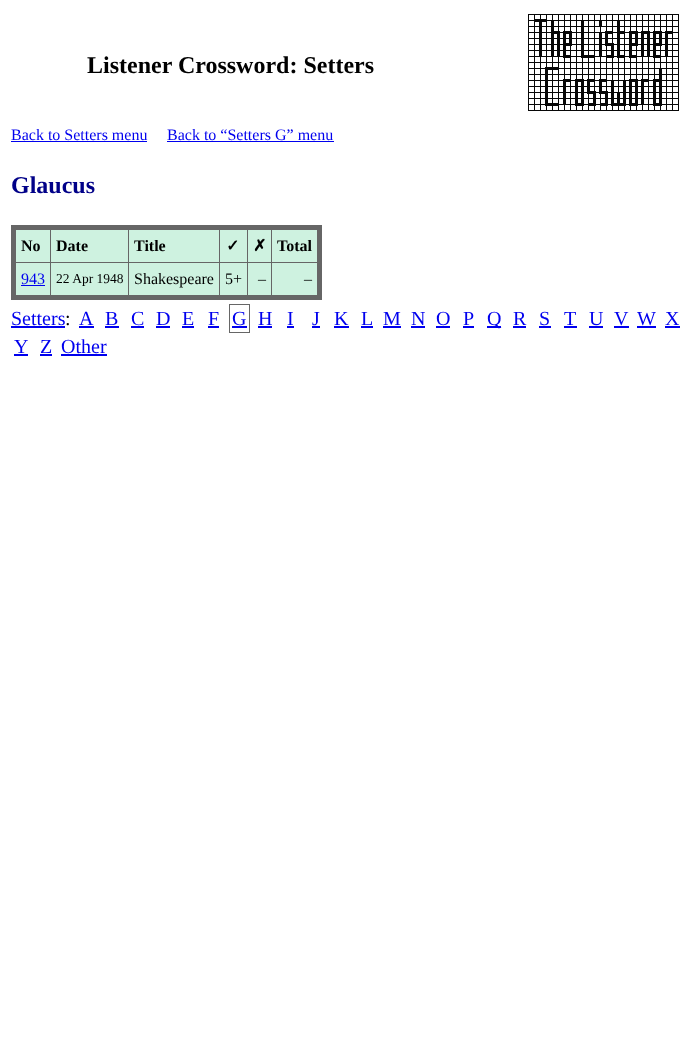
async function draw(canvas) {
  canvas.width = 693;
  canvas.height = 1043;
  const ctx = canvas.getContext('2d');
  ctx.miterLimit = 4;
  ctx.fontKerning = 'normal';
  function label(s, x, y, font, color) {
    ctx.font = font;
    ctx.fillStyle = color;
    ctx.fillText(s, x, y);
  }
  function rect(x, y, w, h, color) {
    ctx.fillStyle = color;
    ctx.fillRect(x, y, w, h);
  }
  async function image(src, x, y, w, h) {
    const img = new Image();
    img.src = src;
    await img.decode();
    ctx.drawImage(img, x, y, w, h);
  }

  rect(0, 0, 693, 1043, '#fff');
  label('Listener Crossword: Setters', 87, 73, 'bold 24px Liberation Serif', '#000');
  await image('assets/img1.png', 528, 14, 151, 97);
  label('Back to Setters menu', 11, 140, '16px Liberation Serif', '#00e');
  rect(11, 141, 136, 1, '#00e');
  label('Back to “Setters G” menu', 167, 140, '16px Liberation Serif', '#00e');
  rect(167, 141, 167, 1, '#00e');
  label('Glaucus', 11, 193, 'bold 24px Liberation Serif', '#008');
  rect(16, 230, 301, 65, '#cef2e0');
  rect(271, 262, 49, 1, '#666');
  rect(271, 262, 1, 36, '#666');
  rect(247, 262, 25, 1, '#666');
  rect(247, 262, 1, 36, '#666');
  rect(219, 262, 29, 1, '#666');
  rect(219, 262, 1, 36, '#666');
  rect(128, 262, 92, 1, '#666');
  rect(128, 262, 1, 36, '#666');
  rect(50, 262, 79, 1, '#666');
  rect(50, 262, 1, 36, '#666');
  rect(13, 262, 38, 1, '#666');
  rect(50, 227, 1, 36, '#666');
  rect(128, 227, 1, 36, '#666');
  rect(219, 227, 1, 36, '#666');
  rect(247, 227, 1, 36, '#666');
  rect(271, 227, 1, 36, '#666');
  rect(11, 225, 311, 5, '#666');
  rect(317, 225, 5, 75, '#666');
  rect(11, 295, 311, 5, '#666');
  rect(11, 225, 5, 75, '#666');
  label('No', 21, 251, 'bold 16px Liberation Serif', '#000');
  label('Date', 56, 251, 'bold 16px Liberation Serif', '#000');
  label('Title', 134, 251, 'bold 16px Liberation Serif', '#000');
  label('✓', 226, 251, 'bold 16px DejaVu Sans', '#000');
  label('✗', 253, 251, 'bold 16px DejaVu Sans', '#000');
  label('Total', 277, 251, 'bold 16px Liberation Serif', '#000');
  label('943', 21, 284, '16px Liberation Serif', '#00e');
  rect(21, 285, 24, 1, '#00e');
  label('22 Apr 1948', 56, 283, '13.5px Liberation Serif', '#000');
  label('Shakespeare', 134, 284, '16px Liberation Serif', '#000');
  label('5+', 225, 284, '16px Liberation Serif', '#000');
  label('–', 258, 284, '16px Liberation Serif', '#000');
  label('–', 304, 284, '16px Liberation Serif', '#000');
  label('Setters', 11, 325, '20px Liberation Serif', '#00e');
  rect(11, 326, 54, 2, '#00e');
  label(':', 65, 325, '20px Liberation Serif', '#000');
  label('A', 79, 325, '20px Liberation Serif', '#00e');
  rect(79, 326, 15, 2, '#00e');
  label('B', 105, 325, '20px Liberation Serif', '#00e');
  rect(105, 326, 14, 2, '#00e');
  label('C', 131, 325, '20px Liberation Serif', '#00e');
  rect(131, 326, 13, 2, '#00e');
  label('D', 156, 325, '20px Liberation Serif', '#00e');
  rect(156, 326, 14, 2, '#00e');
  label('E', 182, 325, '20px Liberation Serif', '#00e');
  rect(182, 326, 12, 2, '#00e');
  label('F', 208, 325, '20px Liberation Serif', '#00e');
  rect(208, 326, 11, 2, '#00e');
  ctx.strokeStyle = '#666';
  ctx.strokeRect(229.5, 304.5, 20, 28);
  label('G', 232, 325, '20px Liberation Serif', '#00e');
  rect(232, 326, 15, 2, '#00e');
  label('H', 258, 325, '20px Liberation Serif', '#00e');
  rect(258, 326, 14, 2, '#00e');
  label('I', 287, 325, '20px Liberation Serif', '#00e');
  rect(287, 326, 7, 2, '#00e');
  label('J', 312, 325, '20px Liberation Serif', '#00e');
  rect(312, 326, 8, 2, '#00e');
  label('K', 334, 325, '20px Liberation Serif', '#00e');
  rect(334, 326, 15, 2, '#00e');
  label('L', 361, 325, '20px Liberation Serif', '#00e');
  rect(361, 326, 12, 2, '#00e');
  label('M', 383, 325, '20px Liberation Serif', '#00e');
  rect(383, 326, 18, 2, '#00e');
  label('N', 411, 325, '20px Liberation Serif', '#00e');
  rect(411, 326, 14, 2, '#00e');
  label('O', 436, 325, '20px Liberation Serif', '#00e');
  rect(436, 326, 14, 2, '#00e');
  label('P', 463, 325, '20px Liberation Serif', '#00e');
  rect(463, 326, 11, 2, '#00e');
  rect(487, 326, 14, 2, '#00e');
  label('Q', 487, 325, '20px Liberation Serif', '#00e');
  label('R', 513, 325, '20px Liberation Serif', '#00e');
  rect(513, 326, 13, 2, '#00e');
  label('S', 539, 325, '20px Liberation Serif', '#00e');
  rect(539, 326, 12, 2, '#00e');
  label('T', 564, 325, '20px Liberation Serif', '#00e');
  rect(564, 326, 13, 2, '#00e');
  label('U', 589, 325, '20px Liberation Serif', '#00e');
  rect(589, 326, 14, 2, '#00e');
  label('V', 614, 325, '20px Liberation Serif', '#00e');
  rect(614, 326, 15, 2, '#00e');
  label('W', 637, 325, '20px Liberation Serif', '#00e');
  rect(637, 326, 19, 2, '#00e');
  label('X', 665, 325, '20px Liberation Serif', '#00e');
  rect(665, 326, 15, 2, '#00e');
  label('Y', 14, 353, '20px Liberation Serif', '#00e');
  rect(14, 354, 14, 2, '#00e');
  label('Z', 40, 353, '20px Liberation Serif', '#00e');
  rect(40, 354, 12, 2, '#00e');
  label('Other', 61, 353, '20px Liberation Serif', '#00e');
  rect(61, 354, 46, 2, '#00e');
}

draw(document.querySelector('canvas'));
